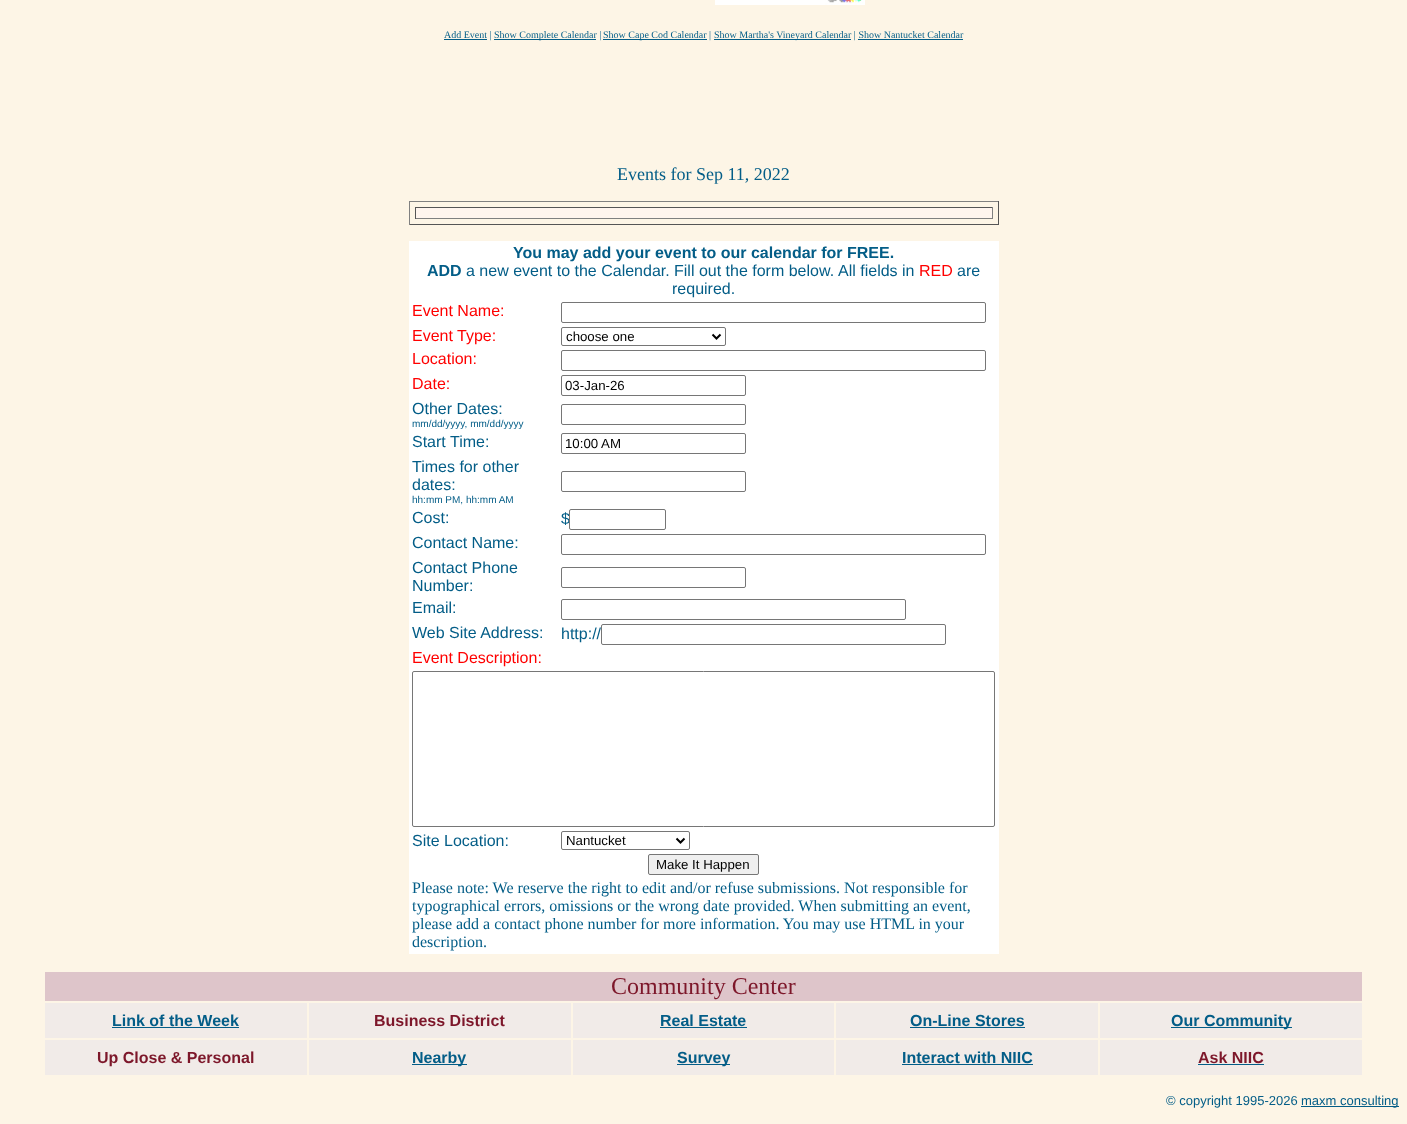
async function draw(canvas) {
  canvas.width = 1407;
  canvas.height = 1124;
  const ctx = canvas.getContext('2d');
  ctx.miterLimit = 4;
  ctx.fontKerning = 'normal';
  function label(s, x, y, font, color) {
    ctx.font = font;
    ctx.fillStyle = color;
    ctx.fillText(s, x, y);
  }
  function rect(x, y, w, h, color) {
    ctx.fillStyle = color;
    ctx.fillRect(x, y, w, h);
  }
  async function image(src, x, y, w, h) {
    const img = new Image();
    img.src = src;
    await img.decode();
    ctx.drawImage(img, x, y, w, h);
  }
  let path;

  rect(0, 0, 1407, 1124, '#fdf5e6');
  await image('assets/img1.png', 715, 0, 150, 5);
  rect(444, 39, 43, 1, '#035d87');
  label('Add Event |', 444, 38, '10px Liberation Serif', '#035d87');
  rect(494, 39, 102, 1, '#035d87');
  label('Show Complete Calendar |', 494, 38, '10px Liberation Serif', '#035d87');
  rect(603, 39, 104, 1, '#035d87');
  label('Show Cape Cod Calendar |', 603, 38, '10px Liberation Serif', '#035d87');
  rect(714, 39, 137, 1, '#035d87');
  label('Show Martha\'s Vineyard Calendar | Show Nantucket Calendar', 714, 38, '10px Liberation Serif', '#035d87');
  rect(858, 39, 105, 1, '#035d87');
  label('Events for Sep 11, 2022', 617, 180, '18px Liberation Serif', '#035d87');
  rect(409, 201, 590, 1, '#808080');
  rect(998, 201, 1, 24, '#555');
  rect(409, 224, 590, 1, '#555');
  rect(409, 201, 1, 24, '#808080');
  rect(416, 208, 576, 10, '#fff5ee');
  rect(415, 207, 578, 1, '#555');
  rect(992, 207, 1, 12, '#808080');
  rect(415, 218, 578, 1, '#808080');
  rect(415, 207, 1, 12, '#555');
  rect(409, 241, 590, 713, '#fff');
  label('You may add your event to our calendar for FREE.', 513, 258, 'bold 16px Liberation Sans', '#035d87');
  label('ADD', 427, 276, 'bold 16px Liberation Sans', '#035d87');
  label('a new event to the Calendar.', 466, 276, '16px Liberation Sans', '#035d87');
  label('Fill out the form below.', 674, 276, '16px Liberation Sans', '#035d87');
  label('All fields in', 838, 276, '16px Liberation Sans', '#035d87');
  label('RED', 919, 276, '16px Liberation Sans', '#f00');
  label('are', 957, 276, '16px Liberation Sans', '#035d87');
  label('required.', 672, 294, '16px Liberation Sans', '#035d87');
  label('Event Name:', 412, 316, '16px Liberation Sans', '#f00');
  ctx.beginPath();
  ctx.roundRect(561.5, 302.5, 424, 20, 1.5);
  ctx.strokeStyle = '#767676';
  ctx.stroke();
  label('Event Type:', 412, 341, '16px Liberation Sans', '#f00');
  ctx.beginPath();
  ctx.roundRect(561.5, 327.5, 164, 18, 1.5);
  ctx.stroke();
  path = new Path2D('M712.5 334.5L716.5 338.5L720.5 334.5');
  ctx.strokeStyle = '#000';
  ctx.lineWidth = 2;
  ctx.stroke(path);
  label('choose one', 566, 341, '13.25px Liberation Sans', '#000');
  label('Location:', 412, 364, '16px Liberation Sans', '#f00');
  ctx.beginPath();
  ctx.roundRect(561.5, 350.5, 424, 20, 1.5);
  ctx.strokeStyle = '#767676';
  ctx.lineWidth = 1;
  ctx.stroke();
  label('Date:', 412, 389, '16px Liberation Sans', '#f00');
  ctx.beginPath();
  ctx.roundRect(561.5, 375.5, 184, 20, 1.5);
  ctx.stroke();
  label('03-Jan-26', 565, 390, '13.25px Liberation Sans', '#000');
  label('Other Dates:', 412, 414, '16px Liberation Sans', '#035d87');
  label('mm/dd/yyyy, mm/dd/yyyy', 412, 427, '10px Liberation Sans', '#035d87');
  ctx.beginPath();
  ctx.roundRect(561.5, 404.5, 184, 20, 1.5);
  ctx.stroke();
  label('Start Time:', 412, 447, '16px Liberation Sans', '#035d87');
  ctx.beginPath();
  ctx.roundRect(561.5, 433.5, 184, 20, 1.5);
  ctx.stroke();
  label('10:00 AM', 565, 448, '13.25px Liberation Sans', '#000');
  label('Times for other', 412, 472, '16px Liberation Sans', '#035d87');
  label('dates:', 412, 490, '16px Liberation Sans', '#035d87');
  label('hh:mm PM, hh:mm AM', 412, 503, '10px Liberation Sans', '#035d87');
  ctx.beginPath();
  ctx.roundRect(561.5, 471.5, 184, 20, 1.5);
  ctx.stroke();
  label('Cost:', 412, 523, '16px Liberation Sans', '#035d87');
  label('$', 561, 524, '16px Liberation Sans', '#035d87');
  ctx.fillStyle = '#fff';
  ctx.beginPath();
  ctx.roundRect(569.5, 509.5, 96, 20, 1.5);
  ctx.fill();
  ctx.stroke();
  label('Contact Name:', 412, 548, '16px Liberation Sans', '#035d87');
  ctx.beginPath();
  ctx.roundRect(561.5, 534.5, 424, 20, 1.5);
  ctx.stroke();
  label('Contact Phone', 412, 573, '16px Liberation Sans', '#035d87');
  label('Number:', 412, 591, '16px Liberation Sans', '#035d87');
  ctx.beginPath();
  ctx.roundRect(561.5, 567.5, 184, 20, 1.5);
  ctx.stroke();
  label('Email:', 412, 613, '16px Liberation Sans', '#035d87');
  ctx.beginPath();
  ctx.roundRect(561.5, 599.5, 344, 20, 1.5);
  ctx.stroke();
  label('Web Site Address:', 412, 638, '16px Liberation Sans', '#035d87');
  label('http://', 561, 639, '16px Liberation Sans', '#035d87');
  ctx.beginPath();
  ctx.roundRect(601.5, 624.5, 344, 20, 1.5);
  ctx.stroke();
  label('Event Description:', 412, 663, '16px Liberation Sans', '#f00');
  ctx.beginPath();
  ctx.roundRect(412.5, 671.5, 582, 155, 1.5);
  ctx.stroke();
  label('Site Location:', 412, 846, '16px Liberation Sans', '#035d87');
  ctx.beginPath();
  ctx.roundRect(561.5, 831.5, 128, 18, 1.5);
  ctx.stroke();
  path = new Path2D('M676.5 838.5L680.5 842.5L684.5 838.5');
  ctx.strokeStyle = '#000';
  ctx.lineWidth = 2;
  ctx.stroke(path);
  label('Nantucket', 566, 845, '13.25px Liberation Sans', '#000');
  ctx.fillStyle = '#efefef';
  ctx.beginPath();
  ctx.roundRect(648.5, 854.5, 110, 20, 1.5);
  ctx.fill();
  ctx.strokeStyle = '#767676';
  ctx.lineWidth = 1;
  ctx.stroke();
  label('Make It Happen', 656, 869, '13.25px Liberation Sans', '#000');
  label('Please note: We reserve the right to edit and/or refuse submissions. Not responsible for', 412, 893, '16px Liberation Serif', '#035d87');
  label('typographical errors, omissions or the wrong date provided. When submitting an event,', 412, 911, '16px Liberation Serif', '#035d87');
  label('please add a contact phone number for more information. You may use HTML in your', 412, 929, '16px Liberation Serif', '#035d87');
  label('description.', 412, 947, '16px Liberation Serif', '#035d87');
  rect(45, 972, 1317, 29, '#dec5ca');
  label('Community Center', 611, 994, '24px Liberation Serif', '#7d172a');
  rect(45, 1003, 262, 35, '#f1ebe8');
  label('Link of the Week', 112, 1026, 'bold 16px Liberation Sans', '#035d87');
  rect(112, 1027, 127, 1, '#035d87');
  rect(309, 1003, 262, 35, '#f1ebe8');
  label('Business District', 374, 1026, 'bold 16px Liberation Sans', '#7d172a');
  rect(573, 1003, 261, 35, '#f1ebe8');
  label('Real Estate', 660, 1026, 'bold 16px Liberation Sans', '#035d87');
  rect(660, 1027, 87, 1, '#035d87');
  rect(836, 1003, 262, 35, '#f1ebe8');
  label('On-Line Stores', 910, 1026, 'bold 16px Liberation Sans', '#035d87');
  rect(910, 1027, 115, 1, '#035d87');
  rect(1100, 1003, 262, 35, '#f1ebe8');
  rect(1171, 1027, 121, 1, '#035d87');
  label('Our Community', 1171, 1026, 'bold 16px Liberation Sans', '#035d87');
  rect(45, 1040, 262, 35, '#f1ebe8');
  label('Up Close & Personal', 97, 1063, 'bold 16px Liberation Sans', '#7d172a');
  rect(309, 1040, 262, 35, '#f1ebe8');
  rect(412, 1064, 55, 1, '#035d87');
  label('Nearby', 412, 1063, 'bold 16px Liberation Sans', '#035d87');
  rect(573, 1040, 261, 35, '#f1ebe8');
  rect(677, 1064, 53, 1, '#035d87');
  label('Survey', 677, 1063, 'bold 16px Liberation Sans', '#035d87');
  rect(836, 1040, 262, 35, '#f1ebe8');
  label('Interact with NIIC', 902, 1063, 'bold 16px Liberation Sans', '#035d87');
  rect(902, 1064, 131, 1, '#035d87');
  rect(1100, 1040, 262, 35, '#f1ebe8');
  label('Ask NIIC', 1198, 1063, 'bold 16px Liberation Sans', '#7d172a');
  rect(1198, 1064, 66, 1, '#035d87');
  label('© copyright 1995-2026', 1166, 1105, '13px Liberation Sans', '#035d87');
  rect(1301, 1106, 98, 1, '#035d87');
  label('maxm consulting', 1301, 1105, '13px Liberation Sans', '#035d87');
}

draw(document.querySelector('canvas'));
